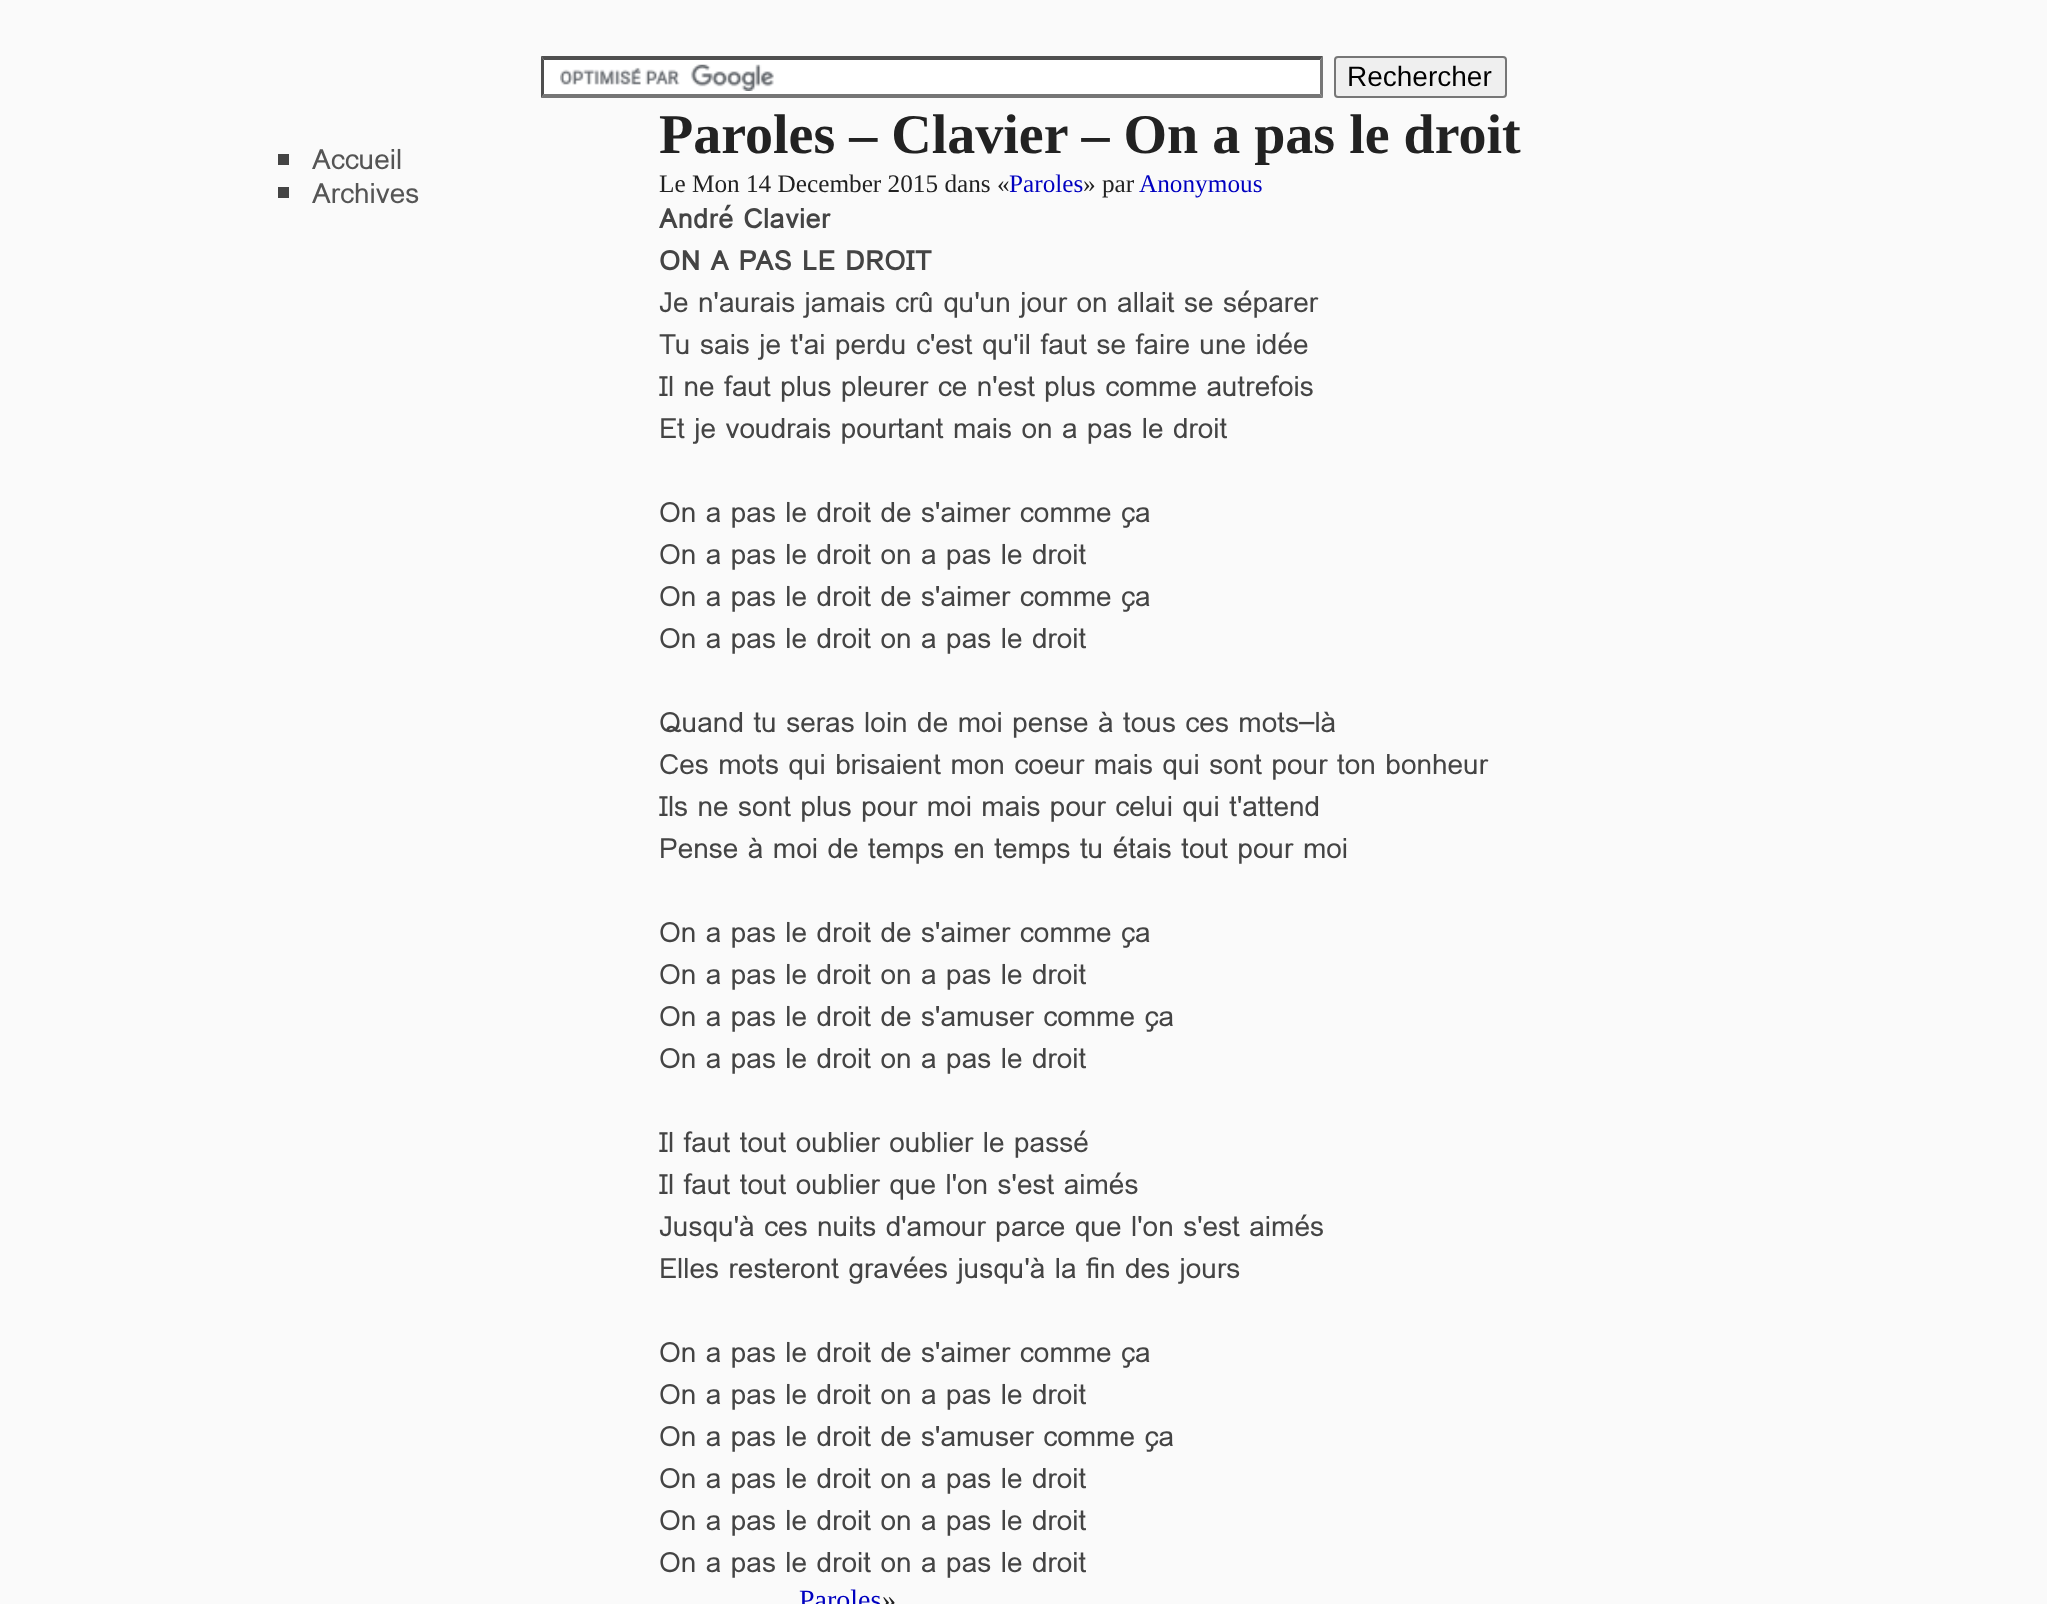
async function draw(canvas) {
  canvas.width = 2047;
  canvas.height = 1604;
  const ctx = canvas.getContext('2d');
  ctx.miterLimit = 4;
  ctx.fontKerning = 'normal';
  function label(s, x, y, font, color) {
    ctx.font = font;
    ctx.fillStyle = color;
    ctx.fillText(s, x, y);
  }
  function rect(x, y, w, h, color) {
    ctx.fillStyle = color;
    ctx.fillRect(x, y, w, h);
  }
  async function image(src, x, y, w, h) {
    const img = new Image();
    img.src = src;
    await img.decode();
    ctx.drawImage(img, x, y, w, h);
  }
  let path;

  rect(0, 0, 2047, 1604, '#fafafa');
  rect(541, 56, 782, 42, '#fff');
  await image('assets/img1.png', 560, 64, 214, 27);
  ctx.fillStyle = '#4f4f4f';
  path = new Path2D('M541 56H1323L1320 60H544Z');
  ctx.fill(path);
  ctx.fillStyle = '#767676';
  path = new Path2D('M1323 56V98L1320 94V60Z');
  ctx.fill(path);
  path = new Path2D('M1323 98H541L544 94H1320Z');
  ctx.fill(path);
  ctx.fillStyle = '#4f4f4f';
  path = new Path2D('M541 98V56L544 60V94Z');
  ctx.fill(path);
  ctx.fillStyle = '#efefef';
  ctx.beginPath();
  ctx.roundRect(1335, 57, 171, 40, 3);
  ctx.fill();
  ctx.strokeStyle = '#767676';
  ctx.lineWidth = 2;
  ctx.stroke();
  label('Rechercher', 1347, 86, '28px Liberation Sans', '#000');
  rect(278, 154, 11, 11, '#444');
  label('Accueil', 312, 169, '28px Loma', '#555');
  rect(278, 187, 11, 11, '#444');
  label('Archives', 312, 203, '28px Loma', '#555');
  label('Paroles – Clavier – On a pas le droit', 659, 153, 'bold 56px Liberation Serif', '#222');
  label('Le Mon 14 December 2015 dans «', 659, 192, '25.25px Liberation Serif', '#222');
  label('Paroles', 1009, 192, '25.25px Liberation Serif', '#0000c0');
  label('» par', 1083, 192, '25.25px Liberation Serif', '#222');
  label('Anonymous', 1139, 192, '25.25px Liberation Serif', '#0000c0');
  label('André Clavier', 659, 228, 'bold 28px Loma', '#444');
  label('ON A PAS LE DROIT', 659, 270, 'bold 28px Loma', '#444');
  label('Je n\'aurais jamais crû qu\'un jour on allait se séparer', 659, 312, '28px Loma', '#444');
  label('Tu sais je t\'ai perdu c\'est qu\'il faut se faire une idée', 659, 354, '28px Loma', '#444');
  label('Il ne faut plus pleurer ce n\'est plus comme autrefois', 659, 396, '28px Loma', '#444');
  label('Et je voudrais pourtant mais on a pas le droit', 659, 438, '28px Loma', '#444');
  label('On a pas le droit de s\'aimer comme ça', 659, 522, '28px Loma', '#444');
  label('On a pas le droit on a pas le droit', 659, 564, '28px Loma', '#444');
  label('On a pas le droit de s\'aimer comme ça', 659, 606, '28px Loma', '#444');
  label('On a pas le droit on a pas le droit', 659, 648, '28px Loma', '#444');
  label('Quand tu seras loin de moi pense à tous ces mots–là', 659, 732, '28px Loma', '#444');
  label('Ces mots qui brisaient mon coeur mais qui sont pour ton bonheur', 659, 774, '28px Loma', '#444');
  label('Ils ne sont plus pour moi mais pour celui qui t\'attend', 659, 816, '28px Loma', '#444');
  label('Pense à moi de temps en temps tu étais tout pour moi', 659, 858, '28px Loma', '#444');
  label('On a pas le droit de s\'aimer comme ça', 659, 942, '28px Loma', '#444');
  label('On a pas le droit on a pas le droit', 659, 984, '28px Loma', '#444');
  label('On a pas le droit de s\'amuser comme ça', 659, 1026, '28px Loma', '#444');
  label('On a pas le droit on a pas le droit', 659, 1068, '28px Loma', '#444');
  label('Il faut tout oublier oublier le passé', 659, 1152, '28px Loma', '#444');
  label('Il faut tout oublier que l\'on s\'est aimés', 659, 1194, '28px Loma', '#444');
  label('Jusqu\'à ces nuits d\'amour parce que l\'on s\'est aimés', 659, 1236, '28px Loma', '#444');
  label('Elles resteront gravées jusqu\'à la fin des jours', 659, 1278, '28px Loma', '#444');
  label('On a pas le droit de s\'aimer comme ça', 659, 1362, '28px Loma', '#444');
  label('On a pas le droit on a pas le droit', 659, 1404, '28px Loma', '#444');
  label('On a pas le droit de s\'amuser comme ça', 659, 1446, '28px Loma', '#444');
  label('On a pas le droit on a pas le droit', 659, 1488, '28px Loma', '#444');
  label('On a pas le droit on a pas le droit', 659, 1530, '28px Loma', '#444');
  label('On a pas le droit on a pas le droit', 659, 1572, '28px Loma', '#444');
  label('Paroles', 799, 1609, '28px Liberation Serif', '#0000c0');
  label('»', 882, 1609, '28px Liberation Serif', '#222');
}

draw(document.querySelector('canvas'));
